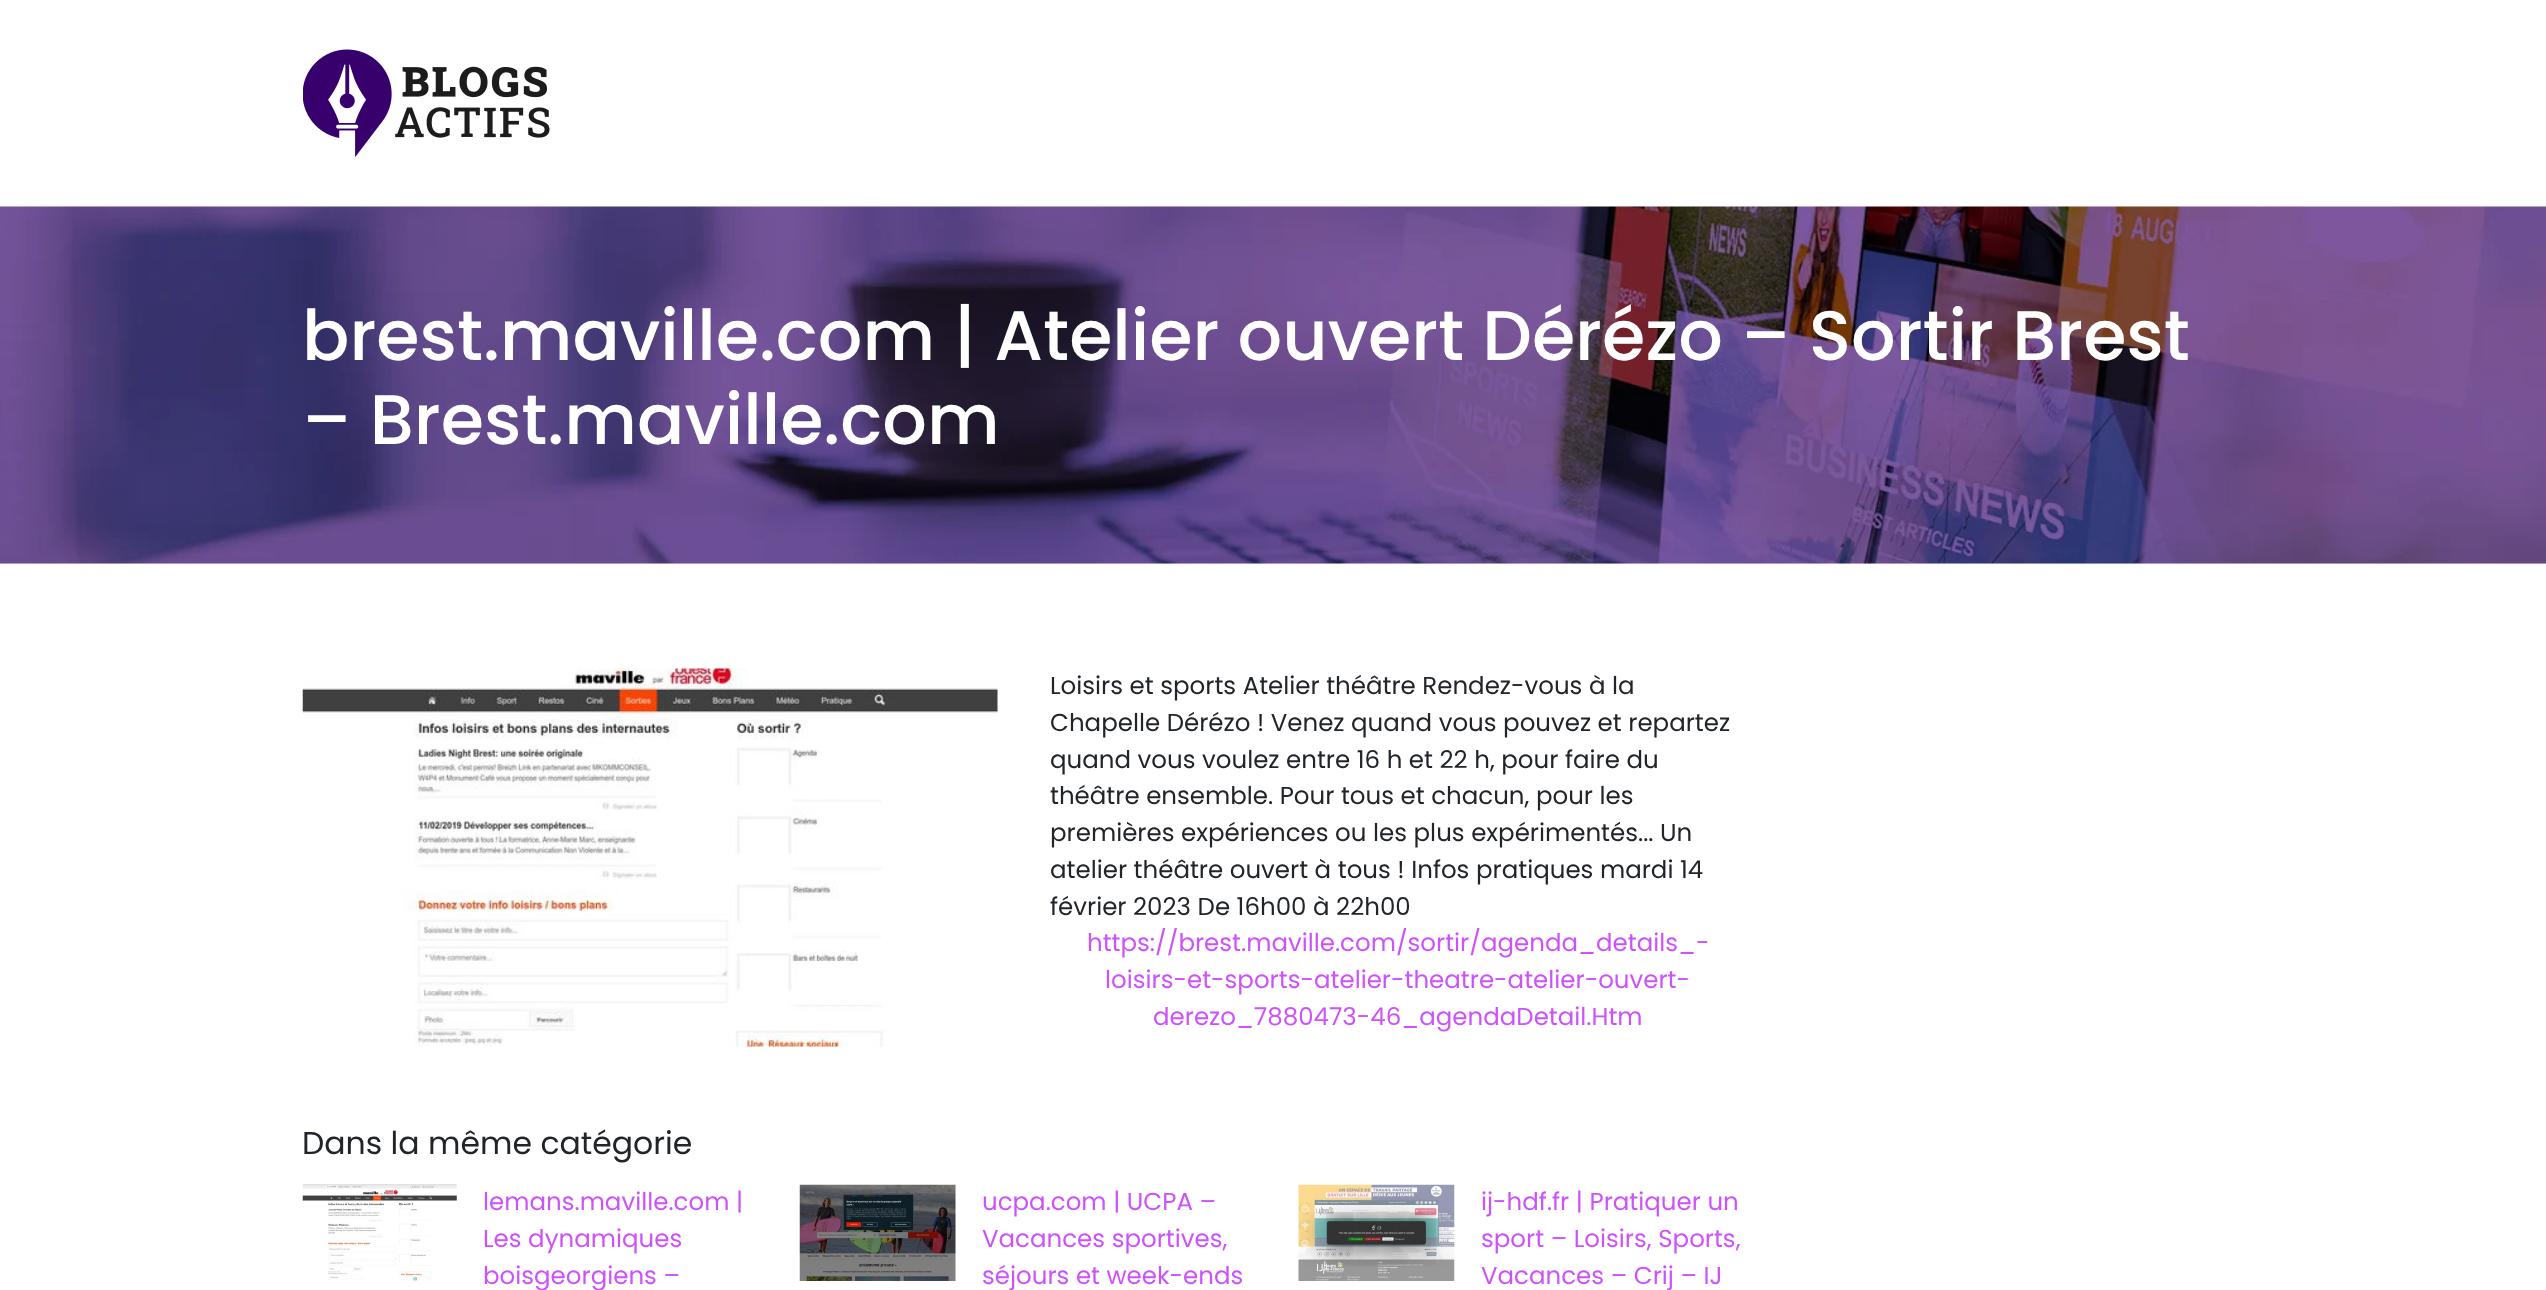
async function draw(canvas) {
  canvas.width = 2546;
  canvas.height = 1290;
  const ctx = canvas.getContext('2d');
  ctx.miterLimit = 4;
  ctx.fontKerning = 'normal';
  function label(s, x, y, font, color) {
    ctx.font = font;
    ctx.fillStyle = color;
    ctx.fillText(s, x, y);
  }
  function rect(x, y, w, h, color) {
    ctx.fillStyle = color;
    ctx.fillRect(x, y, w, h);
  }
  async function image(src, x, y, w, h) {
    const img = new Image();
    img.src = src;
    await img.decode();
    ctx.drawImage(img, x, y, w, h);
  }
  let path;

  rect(0, 0, 2546, 1290, '#fff');
  ctx.save();
  path = new Path2D('M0 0H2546V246H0ZM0 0H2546V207H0Z');
  ctx.clip(path, 'evenodd');
  ctx.fillStyle = '#0000001a';
  ctx.filter = 'blur(11.5px)';
  ctx.beginPath();
  ctx.rect(0, 4, 2546, 206);
  ctx.fill();
  ctx.filter = 'none';
  ctx.restore();
  await image('assets/img1.png', 303, 49, 247, 108);
  rect(0, 563, 2546, 1, '#eee');
  await image('assets/img2.png', 0, 206, 2546, 358);
  label('brest.maville.com | Atelier ouvert Dérézo – Sortir Brest', 302, 360, '500 70px Poppins', '#fff');
  label('– Brest.maville.com', 302, 444, '500 70px Poppins', '#fff');
  await image('assets/img3.png', 302, 668, 696, 379);
  label('Loisirs et sports Atelier théâtre Rendez-vous à la', 1050, 694, '24.5px Poppins', '#212529');
  label('Chapelle Dérézo ! Venez quand vous pouvez et repartez', 1050, 731, '24.5px Poppins', '#212529');
  label('quand vous voulez entre 16 h et 22 h, pour faire du', 1050, 768, '24.5px Poppins', '#212529');
  label('théâtre ensemble. Pour tous et chacun, pour les', 1050, 804, '24.5px Poppins', '#212529');
  label('premières expériences ou les plus expérimentés... Un', 1050, 841, '24.5px Poppins', '#212529');
  label('atelier théâtre ouvert à tous ! Infos pratiques mardi 14', 1050, 878, '24.5px Poppins', '#212529');
  label('février 2023 De 16h00 à 22h00', 1050, 915, '24.5px Poppins', '#212529');
  label('https://brest.maville.com/sortir/agenda_details_-', 1087, 951, '24.5px Poppins', '#ce52fc');
  label('loisirs-et-sports-atelier-theatre-atelier-ouvert-', 1105, 988, '24.5px Poppins', '#ce52fc');
  label('derezo_7880473-46_agendaDetail.Htm', 1153, 1025, '24.5px Poppins', '#ce52fc');
  label('Dans la même catégorie', 302, 1154, '31.5px Poppins', '#212529');
  await image('assets/img4.png', 302, 1184, 155, 97);
  label('lemans.maville.com |', 483, 1210, '24.5px Poppins', '#ce52fc');
  label('Les dynamiques', 483, 1247, '24.5px Poppins', '#ce52fc');
  label('boisgeorgiens –', 483, 1284, '24.5px Poppins', '#ce52fc');
  await image('assets/img5.png', 799, 1184, 157, 97);
  label('ucpa.com | UCPA –', 982, 1210, '24.5px Poppins', '#ce52fc');
  label('Vacances sportives,', 982, 1247, '24.5px Poppins', '#ce52fc');
  label('séjours et week-ends', 982, 1284, '24.5px Poppins', '#ce52fc');
  await image('assets/img6.png', 1298, 1184, 157, 97);
  label('ij-hdf.fr | Pratiquer un', 1481, 1210, '24.5px Poppins', '#ce52fc');
  label('sport – Loisirs, Sports,', 1481, 1247, '24.5px Poppins', '#ce52fc');
  label('Vacances – Crij – IJ', 1481, 1284, '24.5px Poppins', '#ce52fc');
}

draw(document.querySelector('canvas'));
